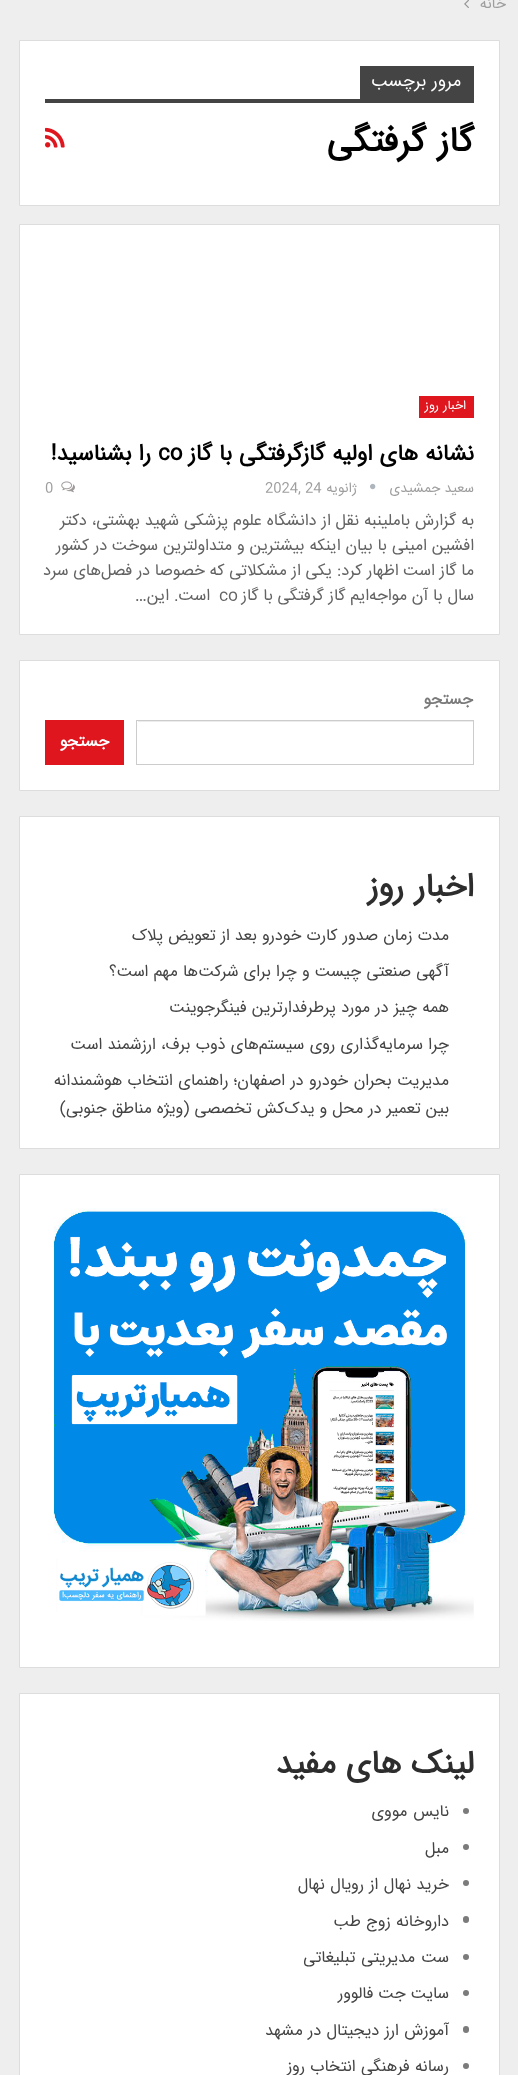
async function draw(canvas) {
  canvas.width = 518;
  canvas.height = 2075;
  const ctx = canvas.getContext('2d');
  ctx.miterLimit = 4;
  ctx.fontKerning = 'normal';
  function label(s, x, y, font, color) {
    ctx.font = font;
    ctx.fillStyle = color;
    ctx.fillText(s, x, y);
  }
  function rect(x, y, w, h, color) {
    ctx.fillStyle = color;
    ctx.fillRect(x, y, w, h);
  }
  function roundedRect(x, y, w, h, r, color) {
    ctx.fillStyle = color;
    ctx.beginPath();
    ctx.roundRect(x, y, w, h, r);
    ctx.fill();
  }
  async function image(src, x, y, w, h) {
    const img = new Image();
    img.src = src;
    await img.decode();
    ctx.drawImage(img, x, y, w, h);
  }

  rect(0, 0, 518, 2075, '#eee');
  ctx.letterSpacing = '-0.05px';
  ctx.direction = 'rtl';
  label('خانه', 506, 8, '15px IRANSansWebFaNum', '#9e9e9e');
  await image('assets/img1.png', 464, 0, 5, 8);
  ctx.fillStyle = '#fff';
  ctx.beginPath();
  ctx.rect(19.5, 40.5, 480, 165);
  ctx.fill();
  ctx.strokeStyle = '#ddd';
  ctx.stroke();
  rect(360, 66, 114, 33, '#444');
  ctx.wordSpacing = '1px';
  label('مرور برچسب', 461, 86, '17.5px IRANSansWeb', '#fff');
  rect(45, 99, 429, 4, '#444');
  label('گاز گرفتگی', 474, 151, 'bold 35px IRANSansWebFaNum', '#000');
  await image('assets/img2.png', 45, 127, 20, 21);
  ctx.fillStyle = '#fff';
  ctx.beginPath();
  ctx.rect(19.5, 224.5, 480, 410);
  ctx.fill();
  ctx.stroke();
  rect(419, 396, 55, 22, '#df161e');
  label('اخبار روز', 466, 409, '12.5px IRANSansWeb', '#fff');
  ctx.wordSpacing = '0.25px';
  label('نشانه های اولیه گازگرفتگی با گاز', 474, 460, 'bold 22.5px IRANSansWebFaNum', '#000');
  ctx.wordSpacing = '0px';
  ctx.direction = 'ltr';
  label('co', 158, 460, 'bold 22.5px IRANSansWebFaNum', '#000');
  ctx.wordSpacing = '0.25px';
  ctx.direction = 'rtl';
  label('را بشناسید!', 151, 460, 'bold 22.5px IRANSansWebFaNum', '#000');
  ctx.wordSpacing = '0.4px';
  label('سعید جمشیدی', 474, 492, '13.75px IRANSansWeb', '#9e9e9e');
  await image('assets/img3.png', 370, 483, 6, 7);
  ctx.wordSpacing = '0px';
  label('ژانویه', 357, 492, '13.75px IRANSansWeb', '#9e9e9e');
  ctx.direction = 'ltr';
  label('24', 305, 492, '13.75px IRANSansWeb', '#9e9e9e');
  label('2024,', 265, 492, '13.75px IRANSansWeb', '#9e9e9e');
  await image('assets/img4.png', 61, 481, 14, 12);
  label('0', 45, 492, '13.75px IRANSansWeb', '#9e9e9e');
  ctx.wordSpacing = '0.4px';
  ctx.direction = 'rtl';
  label('به گزارش باملینبه نقل از دانشگاه علوم پزشکی شهید بهشتی، دکتر', 474, 525, '16.25px IRANSansWeb', '#636363');
  label('افشین امینی با بیان اینکه بیشترین و متداولترین سوخت در کشور', 474, 550, '16.25px IRANSansWeb', '#636363');
  ctx.wordSpacing = '0.25px';
  label('ما گاز است اظهار کرد: یکی از مشکلاتی که خصوصا در فصل‌های سرد', 474, 575, '16.25px IRANSansWeb', '#636363');
  label('سال با آن مواجه‌ایم گاز گرفتگی با گاز', 474, 600, '16.25px IRANSansWeb', '#636363');
  ctx.wordSpacing = '0px';
  ctx.direction = 'ltr';
  label('co', 219, 600, '16.25px IRANSansWeb', '#636363');
  ctx.direction = 'rtl';
  label('است.', 210, 600, '16.25px IRANSansWeb', '#636363');
  label('این…', 169, 600, '16.25px IRANSansWeb', '#636363');
  ctx.fillStyle = '#fff';
  ctx.beginPath();
  ctx.rect(19.5, 660.5, 480, 130);
  ctx.fill();
  ctx.stroke();
  label('جستجو', 473, 704, 'bold 16.25px IRANSansWebFaNum', '#7b7b7b');
  rect(138, 721, 335, 1, '#ececec');
  ctx.strokeStyle = '#ccc';
  ctx.strokeRect(136.5, 720.5, 337, 44);
  rect(45, 720, 79, 45, '#df161e');
  ctx.letterSpacing = '0px';
  label('جستجو', 109, 746, 'bold 16.25px IRANSansWeb', '#fff');
  ctx.beginPath();
  ctx.rect(19.5, 816.5, 480, 332);
  ctx.fill();
  ctx.strokeStyle = '#ddd';
  ctx.stroke();
  ctx.letterSpacing = '-0.05px';
  ctx.wordSpacing = '1px';
  label('اخبار روز', 474, 896, 'bold 32.5px IRANSansWebFaNum', '#2d2d2d');
  ctx.wordSpacing = '0.25px';
  label('مدت زمان صدور کارت خودرو بعد از تعویض پلاک', 449, 940, '16.25px IRANSansWebFaNum', '#444');
  label('آگهی صنعتی چیست و چرا برای شرکت‌ها مهم است؟', 449, 976, '16.25px IRANSansWebFaNum', '#444');
  ctx.wordSpacing = '0.5px';
  label('همه چیز در مورد پرطرفدارترین فینگرجوینت', 449, 1012, '16.25px IRANSansWebFaNum', '#444');
  label('چرا سرمایه‌گذاری روی سیستم‌های ذوب برف، ارزشمند است', 449, 1049, '16.25px IRANSansWebFaNum', '#444');
  label('مدیریت بحران خودرو در اصفهان؛ راهنمای انتخاب هوشمندانه', 449, 1085, '16.25px IRANSansWebFaNum', '#444');
  ctx.wordSpacing = '0.25px';
  label('بین تعمیر در محل و یدک‌کش تخصصی (ویژه مناطق جنوبی)', 449, 1113, '16.25px IRANSansWebFaNum', '#444');
  ctx.fillStyle = '#fff';
  ctx.beginPath();
  ctx.rect(19.5, 1174.5, 480, 493);
  ctx.fill();
  ctx.stroke();
  await image('assets/img5.png', 53, 1208, 421, 413);
  ctx.beginPath();
  ctx.rect(19.5, 1693.5, 480, 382);
  ctx.fill();
  ctx.stroke();
  ctx.wordSpacing = '0px';
  label('لینک های مفید', 474, 1773, 'bold 32.5px IRANSansWebFaNum', '#2d2d2d');
  ctx.fillStyle = '#7b7b7b';
  ctx.beginPath();
  ctx.arc(466, 1811, 3, 0, 2 * Math.PI);
  ctx.fill();
  ctx.wordSpacing = '1px';
  label('نایس مووی', 449, 1816, '16.25px IRANSansWebFaNum', '#444');
  ctx.fillStyle = '#7b7b7b';
  ctx.beginPath();
  ctx.arc(466, 1847, 3, 0, 2 * Math.PI);
  ctx.fill();
  ctx.wordSpacing = '0px';
  label('مبل', 449, 1853, '16.25px IRANSansWebFaNum', '#444');
  ctx.fillStyle = '#7b7b7b';
  ctx.beginPath();
  ctx.arc(466, 1883, 3, 0, 2 * Math.PI);
  ctx.fill();
  ctx.wordSpacing = '0.5px';
  label('خرید نهال از رویال نهال', 449, 1889, '16.25px IRANSansWebFaNum', '#444');
  roundedRect(463, 1916, 6, 7, 3, '#7b7b7b');
  label('داروخانه زوج طب', 449, 1926, '16.25px IRANSansWebFaNum', '#444');
  ctx.fillStyle = '#7b7b7b';
  ctx.beginPath();
  ctx.arc(466, 1957, 3, 0, 2 * Math.PI);
  ctx.fill();
  ctx.wordSpacing = '1px';
  label('ست مدیریتی تبلیغاتی', 449, 1962, '16.25px IRANSansWebFaNum', '#444');
  ctx.fillStyle = '#7b7b7b';
  ctx.beginPath();
  ctx.arc(466, 1993, 3, 0, 2 * Math.PI);
  ctx.fill();
  ctx.wordSpacing = '0px';
  label('سایت جت فالوور', 449, 1998, '16.25px IRANSansWebFaNum', '#444');
  roundedRect(463, 2026, 6, 7, 3, '#7b7b7b');
  ctx.wordSpacing = '0.5px';
  label('آموزش ارز دیجیتال در مشهد', 449, 2035, '16.25px IRANSansWebFaNum', '#444');
  ctx.fillStyle = '#7b7b7b';
  ctx.beginPath();
  ctx.arc(466, 2066, 3, 0, 2 * Math.PI);
  ctx.fill();
  label('رسانه فرهنگی انتخاب روز', 449, 2071, '16.25px IRANSansWebFaNum', '#444');
}

draw(document.querySelector('canvas'));
